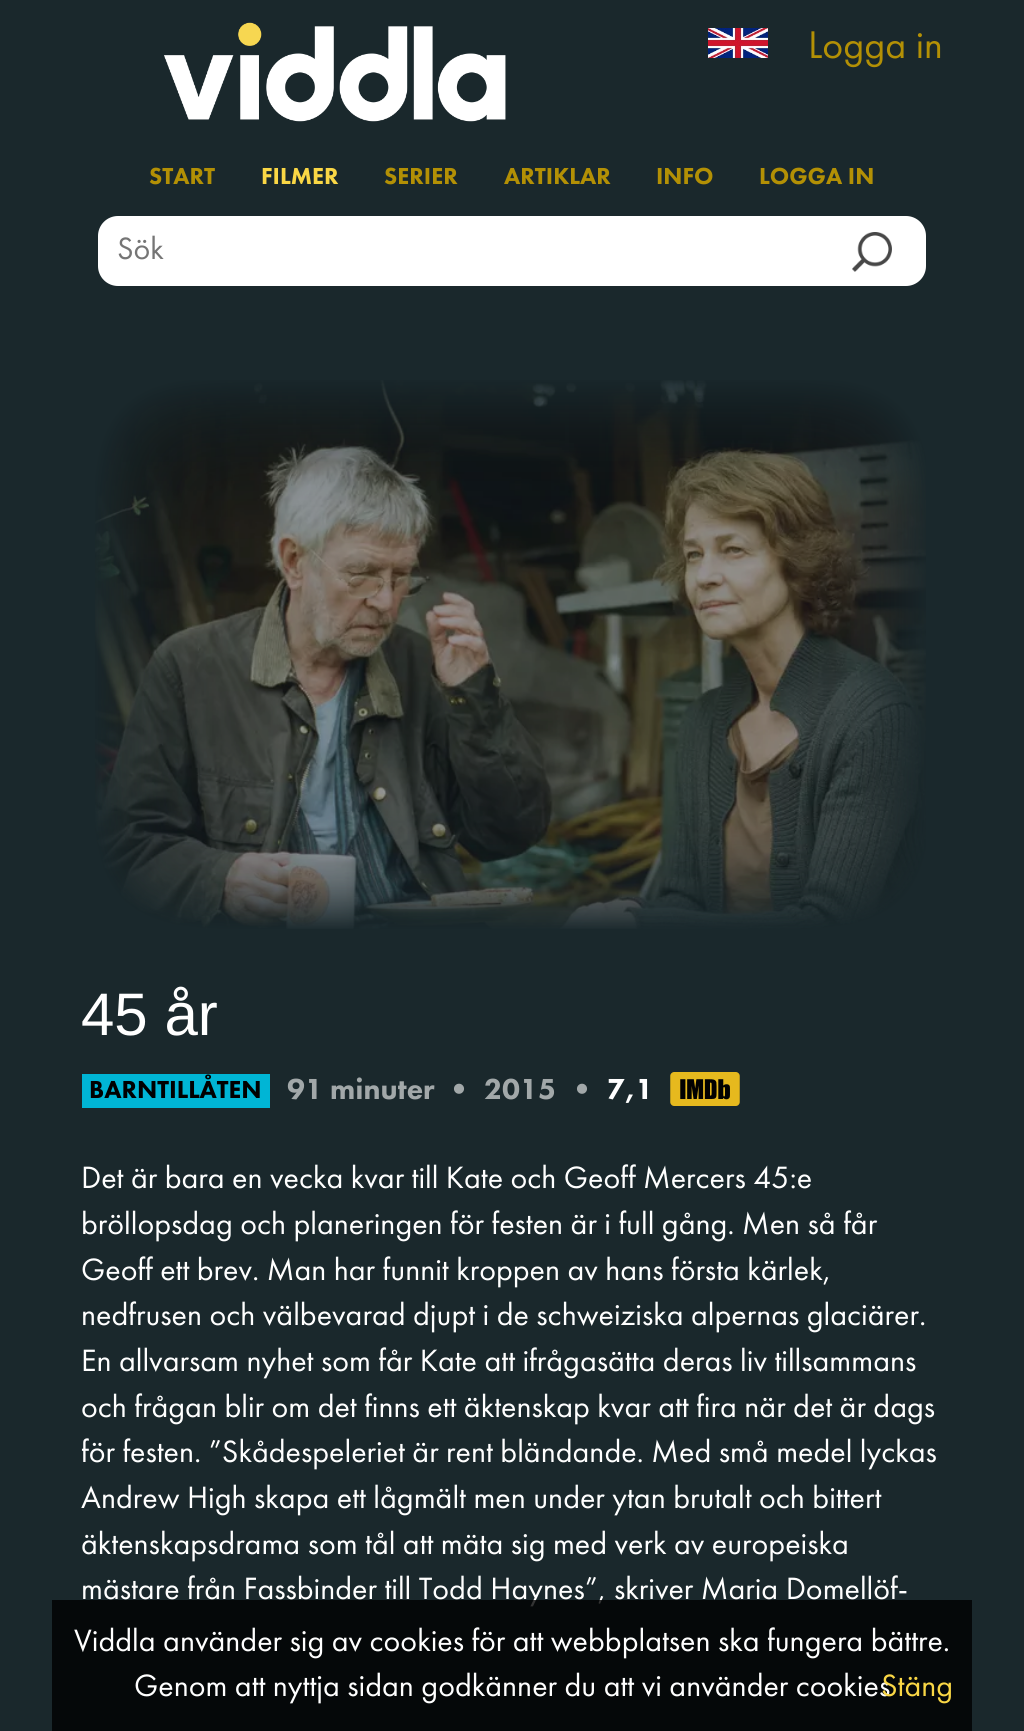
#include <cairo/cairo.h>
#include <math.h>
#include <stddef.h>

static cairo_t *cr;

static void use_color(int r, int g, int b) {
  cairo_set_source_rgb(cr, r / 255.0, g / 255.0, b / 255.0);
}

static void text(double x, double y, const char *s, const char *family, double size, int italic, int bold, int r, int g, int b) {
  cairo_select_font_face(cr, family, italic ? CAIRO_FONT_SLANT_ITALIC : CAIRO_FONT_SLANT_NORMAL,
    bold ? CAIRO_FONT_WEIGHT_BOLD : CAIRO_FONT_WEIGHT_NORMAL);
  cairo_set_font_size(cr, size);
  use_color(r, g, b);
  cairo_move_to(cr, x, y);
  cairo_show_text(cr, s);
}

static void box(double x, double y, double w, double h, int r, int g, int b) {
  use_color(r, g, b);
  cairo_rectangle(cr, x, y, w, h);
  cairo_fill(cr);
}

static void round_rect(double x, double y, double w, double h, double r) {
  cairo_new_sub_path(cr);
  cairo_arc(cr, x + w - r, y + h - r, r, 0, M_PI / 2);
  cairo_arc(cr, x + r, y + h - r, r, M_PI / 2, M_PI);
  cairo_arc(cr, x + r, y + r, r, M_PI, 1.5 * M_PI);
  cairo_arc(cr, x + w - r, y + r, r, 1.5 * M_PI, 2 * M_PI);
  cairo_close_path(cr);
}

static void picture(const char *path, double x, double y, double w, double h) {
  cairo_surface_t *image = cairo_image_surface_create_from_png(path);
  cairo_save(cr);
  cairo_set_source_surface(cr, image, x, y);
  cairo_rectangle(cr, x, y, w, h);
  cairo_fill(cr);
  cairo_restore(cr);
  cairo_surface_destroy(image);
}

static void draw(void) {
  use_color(26, 40, 44);
  cairo_paint(cr);
  picture("img_01.png", 164, 22, 342, 100);
  picture("img_02.png", 708, 28, 60, 30);
  use_color(255, 255, 255);
  round_rect(98, 216, 828, 70, 20);
  cairo_fill(cr);
  picture("img_03.png", 852, 232, 40, 40);
  picture("img_04.png", 95, 380, 831, 549);
  box(82, 1074, 188, 34, 0, 181, 213);
  picture("img_05.png", 670, 1072, 70, 34);
  text(808, 58, "Logga in", "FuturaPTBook", 40, 0, 0, 179, 144, 5);
  text(149, 184, "START", "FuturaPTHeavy", 24, 0, 0, 179, 144, 5);
  text(261, 184, "FILMER", "FuturaPTHeavy", 24, 0, 0, 250, 215, 69);
  text(384, 184, "SERIER", "FuturaPTHeavy", 24, 0, 0, 179, 144, 5);
  text(504, 184, "ARTIKLAR", "FuturaPTHeavy", 24, 0, 0, 179, 144, 5);
  text(656, 184, "INFO", "FuturaPTHeavy", 24, 0, 0, 179, 144, 5);
  text(759, 184, "LOGGA IN", "FuturaPTHeavy", 24, 0, 0, 179, 144, 5);
  text(117, 259, "Sök", "FuturaPTBook", 32, 0, 0, 117, 117, 117);
  text(81, 1035, "45 år", "Liberation Sans", 60, 0, 0, 255, 255, 255);
  text(89, 1098, "BARNTILLÅTEN", "FuturaPTHeavy", 25.5, 0, 0, 0, 0, 0);
  text(287, 1099, "91 minuter", "FuturaPTHeavy", 30, 0, 0, 162, 168, 169);
  text(441, 1101, "•", "FuturaPTHeavy", 36, 0, 0, 162, 168, 169);
  text(484, 1099, "2015", "FuturaPTHeavy", 30, 0, 0, 162, 168, 169);
  text(564, 1101, "•", "FuturaPTHeavy", 36, 0, 0, 162, 168, 169);
  text(607, 1099, "7,1", "FuturaPTHeavy", 30, 0, 0, 255, 255, 255);
  text(81, 1188, "Det är bara en vecka kvar till Kate och Geoff Mercers 45:e", "FuturaPTBook", 32, 0, 0, 255, 255, 255);
  text(81, 1234, "bröllopsdag och planeringen för festen är i full gång. Men så får", "FuturaPTBook", 32, 0, 0, 255, 255, 255);
  text(81, 1280, "Geoff ett brev. Man har funnit kroppen av hans första kärlek,", "FuturaPTBook", 32, 0, 0, 255, 255, 255);
  text(81, 1325, "nedfrusen och välbevarad djupt i de schweiziska alpernas glaciärer.", "FuturaPTBook", 32, 0, 0, 255, 255, 255);
  text(81, 1371, "En allvarsam nyhet som får Kate att ifrågasätta deras liv tillsammans", "FuturaPTBook", 32, 0, 0, 255, 255, 255);
  text(81, 1417, "och frågan blir om det finns ett äktenskap kvar att fira när det är dags", "FuturaPTBook", 32, 0, 0, 255, 255, 255);
  text(81, 1462, "för festen. ”Skådespeleriet är rent bländande. Med små medel lyckas", "FuturaPTBook", 32, 0, 0, 255, 255, 255);
  text(81, 1508, "Andrew High skapa ett lågmält men under ytan brutalt och bittert", "FuturaPTBook", 32, 0, 0, 255, 255, 255);
  text(81, 1554, "äktenskapsdrama som tål att mäta sig med verk av europeiska", "FuturaPTBook", 32, 0, 0, 255, 255, 255);
  text(81, 1599, "mästare från Fassbinder till Todd Haynes”, skriver Maria Domellöf-", "FuturaPTBook", 32, 0, 0, 255, 255, 255);
  cairo_set_source_rgba(cr, 0, 0, 0, 0.8);
  cairo_rectangle(cr, 52, 1600, 920, 131);
  cairo_fill(cr);
  text(74, 1651, "Viddla använder sig av cookies för att webbplatsen ska fungera bättre.", "FuturaPTBook", 32, 0, 0, 255, 255, 255);
  text(134, 1696, "Genom att nyttja sidan godkänner du att vi använder cookies", "FuturaPTBook", 32, 0, 0, 255, 255, 255);
  text(881, 1696, "Stäng", "FuturaPTBook", 32, 0, 0, 250, 215, 69);
}

int main(void) {
  cairo_surface_t *surface = cairo_image_surface_create(CAIRO_FORMAT_RGB24, 1024, 1731);
  cr = cairo_create(surface);
  cairo_font_options_t *options = cairo_font_options_create();
  cairo_font_options_set_hint_metrics(options, CAIRO_HINT_METRICS_OFF);
  cairo_font_options_set_hint_style(options, CAIRO_HINT_STYLE_NONE);
  cairo_set_font_options(cr, options);
  cairo_set_miter_limit(cr, 4);
  draw();
  cairo_surface_write_to_png(surface, "out.png");
  cairo_font_options_destroy(options);
  cairo_destroy(cr);
  cairo_surface_destroy(surface);
  return 0;
}
